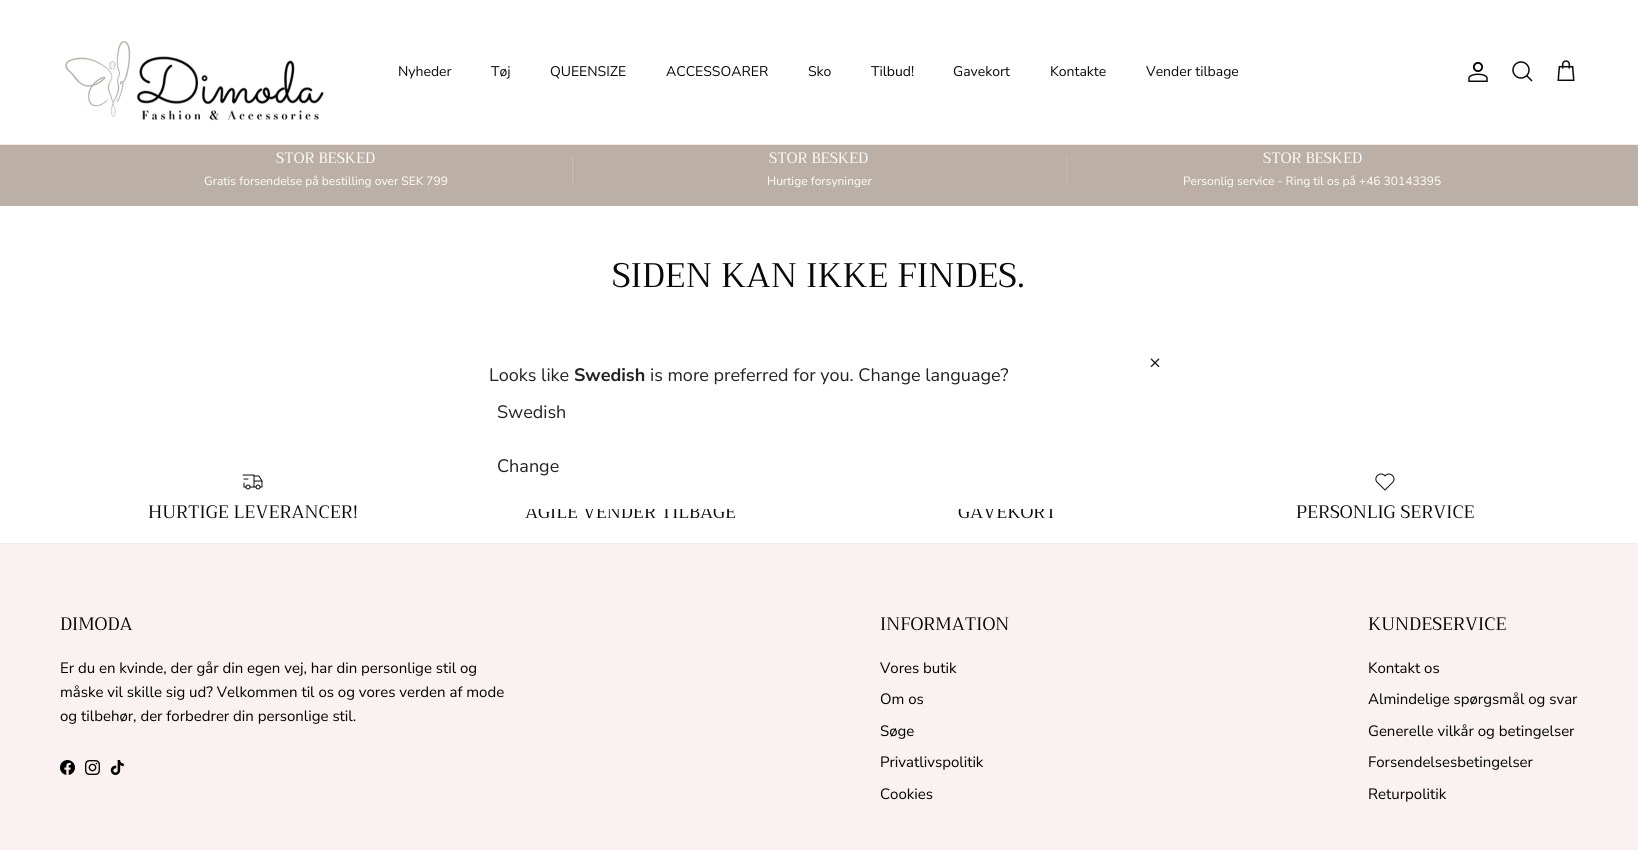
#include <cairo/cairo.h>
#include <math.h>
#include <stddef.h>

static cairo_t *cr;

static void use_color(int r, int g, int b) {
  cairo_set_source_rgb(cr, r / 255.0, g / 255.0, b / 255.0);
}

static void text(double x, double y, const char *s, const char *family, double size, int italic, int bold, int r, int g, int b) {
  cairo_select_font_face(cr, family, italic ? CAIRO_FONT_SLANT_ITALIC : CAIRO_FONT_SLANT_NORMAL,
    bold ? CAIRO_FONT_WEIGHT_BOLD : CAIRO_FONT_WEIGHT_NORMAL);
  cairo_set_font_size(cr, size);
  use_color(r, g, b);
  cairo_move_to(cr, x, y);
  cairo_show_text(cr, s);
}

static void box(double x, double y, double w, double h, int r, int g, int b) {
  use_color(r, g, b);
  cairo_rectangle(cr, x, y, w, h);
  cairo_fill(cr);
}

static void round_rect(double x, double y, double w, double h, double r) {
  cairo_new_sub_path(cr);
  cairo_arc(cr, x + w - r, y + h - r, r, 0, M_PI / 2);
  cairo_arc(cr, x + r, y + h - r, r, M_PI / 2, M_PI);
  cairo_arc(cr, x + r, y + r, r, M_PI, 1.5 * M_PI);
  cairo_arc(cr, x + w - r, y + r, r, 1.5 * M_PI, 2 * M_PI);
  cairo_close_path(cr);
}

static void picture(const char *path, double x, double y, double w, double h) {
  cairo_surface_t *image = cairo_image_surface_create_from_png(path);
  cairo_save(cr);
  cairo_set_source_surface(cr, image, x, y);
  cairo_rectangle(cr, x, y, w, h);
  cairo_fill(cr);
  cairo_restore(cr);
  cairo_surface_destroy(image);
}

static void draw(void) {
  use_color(255, 255, 255);
  cairo_paint(cr);
  box(0, 144, 1638, 1, 243, 234, 226);
  picture("img_01.png", 65, 41, 259, 80);
  picture("img_02.png", 1468, 62, 20, 20);
  cairo_arc(cr, 1521, 70, 8, 0, 2 * M_PI);
  use_color(10, 9, 8);
  cairo_set_line_width(cr, 1.5);
  cairo_stroke(cr);
  cairo_new_path(cr);
  cairo_move_to(cr, 1527, 76);
  cairo_line_to(cr, 1531.5, 80.5);
  cairo_set_line_cap(cr, CAIRO_LINE_CAP_SQUARE);
  cairo_stroke(cr);
  picture("img_03.png", 1557, 60, 18, 21);
  box(0, 145, 1638, 61, 188, 176, 166);
  box(572, 156, 1, 30, 198, 188, 179);
  box(1066, 156, 1, 30, 198, 188, 179);
  picture("img_05.png", 242, 474, 21, 16);
  cairo_new_path(cr);
  cairo_move_to(cr, 1392.5, 482.5);
  cairo_line_to(cr, 1385, 490);
  cairo_line_to(cr, 1376.5, 481.5);
  cairo_curve_to(cr, 1373.5, 476, 1381.5, 471, 1385, 476);
  cairo_curve_to(cr, 1389, 470.5, 1397.5, 477.5, 1392.5, 482.5);
  use_color(10, 9, 8);
  cairo_set_line_width(cr, 1);
  cairo_set_line_cap(cr, CAIRO_LINE_CAP_ROUND);
  cairo_set_line_join(cr, CAIRO_LINE_JOIN_ROUND);
  cairo_stroke(cr);
  box(0, 544, 1638, 306, 250, 242, 242);
  box(0, 543, 1638, 1, 249, 233, 232);
  picture("img_06.png", 60, 760, 15, 15);
  picture("img_07.png", 85, 760, 15, 15);
  picture("img_08.png", 110, 760, 14, 15);
  text(398, 76, "Nyheder", "Nunito Sans", 14, 0, 0, 10, 9, 8);
  text(491, 76, "Tøj", "Nunito Sans", 14, 0, 0, 10, 9, 8);
  text(550, 76, "QUEENSIZE", "Nunito Sans", 14, 0, 0, 10, 9, 8);
  text(666, 76, "ACCESSOARER", "Nunito Sans", 14, 0, 0, 10, 9, 8);
  text(808, 76, "Sko", "Nunito Sans", 14, 0, 0, 10, 9, 8);
  text(871, 76, "Tilbud!", "Nunito Sans", 14, 0, 0, 10, 9, 8);
  text(953, 76, "Gavekort", "Nunito Sans", 14, 0, 0, 10, 9, 8);
  text(1050, 76, "Kontakte", "Nunito Sans", 14, 0, 0, 10, 9, 8);
  text(1146, 76, "Vender tilbage", "Nunito Sans", 14, 0, 0, 10, 9, 8);
  text(276, 163, "STOR BESKED", "Trirong", 15, 0, 0, 255, 255, 255);
  text(204, 185, "Gratis forsendelse på bestilling over SEK 799", "Nunito Sans", 12, 0, 0, 255, 255, 255);
  text(769, 163, "STOR BESKED", "Trirong", 15, 0, 0, 255, 255, 255);
  text(767, 185, "Hurtige forsyninger", "Nunito Sans", 12, 0, 0, 255, 255, 255);
  text(1263, 163, "STOR BESKED", "Trirong", 15, 0, 0, 255, 255, 255);
  text(1183, 185, "Personlig service - Ring til os på +46 30143395", "Nunito Sans", 12, 0, 0, 255, 255, 255);
  text(612, 287, "SIDEN KAN IKKE FINDES.", "Trirong", 34, 0, 0, 10, 9, 8);
  text(148, 518, "HURTIGE LEVERANCER!", "Trirong", 18, 0, 0, 10, 9, 8);
  text(525, 518, "AGILE VENDER TILBAGE", "Trirong", 18, 0, 0, 10, 9, 8);
  text(958, 518, "GAVEKORT", "Trirong", 18, 0, 0, 10, 9, 8);
  use_color(255, 255, 255);
  round_rect(469, 341, 700, 168, 8);
  cairo_fill(cr);
  text(497, 418, "Swedish", "Nunito Sans", 18, 0, 0, 32, 34, 35);
  picture("img_04.png", 1150, 358, 10, 10);
  text(497, 472, "Change", "Nunito Sans", 18, 0, 0, 32, 34, 35);
  text(650, 381, "is more preferred for you. Change language?", "Nunito Sans", 18, 0, 0, 32, 34, 35);
  text(574, 381, "Swedish", "Nunito Sans", 18, 0, 1, 32, 34, 35);
  text(489, 381, "Looks like", "Nunito Sans", 18, 0, 0, 32, 34, 35);
  text(1296, 518, "PERSONLIG SERVICE", "Trirong", 18, 0, 0, 10, 9, 8);
  text(60, 630, "DIMODA", "Trirong", 18, 0, 0, 0, 0, 0);
  text(60, 673, "Er du en kvinde, der går din egen vej, har din personlige stil og", "Nunito Sans", 15, 0, 0, 0, 0, 0);
  text(60, 697, "måske vil skille sig ud? Velkommen til os og vores verden af mode", "Nunito Sans", 15, 0, 0, 0, 0, 0);
  text(60, 721, "og tilbehør, der forbedrer din personlige stil.", "Nunito Sans", 15, 0, 0, 0, 0, 0);
  text(880, 630, "INFORMATION", "Trirong", 18, 0, 0, 0, 0, 0);
  text(880, 673, "Vores butik", "Nunito Sans", 15, 0, 0, 0, 0, 0);
  text(880, 704, "Om os", "Nunito Sans", 15, 0, 0, 0, 0, 0);
  text(880, 736, "Søge", "Nunito Sans", 15, 0, 0, 0, 0, 0);
  text(880, 767, "Privatlivspolitik", "Nunito Sans", 15, 0, 0, 0, 0, 0);
  text(880, 799, "Cookies", "Nunito Sans", 15, 0, 0, 0, 0, 0);
  text(1368, 630, "KUNDESERVICE", "Trirong", 18, 0, 0, 0, 0, 0);
  text(1368, 673, "Kontakt os", "Nunito Sans", 15, 0, 0, 0, 0, 0);
  text(1368, 704, "Almindelige spørgsmål og svar", "Nunito Sans", 15, 0, 0, 0, 0, 0);
  text(1368, 736, "Generelle vilkår og betingelser", "Nunito Sans", 15, 0, 0, 0, 0, 0);
  text(1368, 767, "Forsendelsesbetingelser", "Nunito Sans", 15, 0, 0, 0, 0, 0);
  text(1368, 799, "Returpolitik", "Nunito Sans", 15, 0, 0, 0, 0, 0);
}

int main(void) {
  cairo_surface_t *surface = cairo_image_surface_create(CAIRO_FORMAT_RGB24, 1638, 850);
  cr = cairo_create(surface);
  cairo_font_options_t *options = cairo_font_options_create();
  cairo_font_options_set_hint_metrics(options, CAIRO_HINT_METRICS_OFF);
  cairo_font_options_set_hint_style(options, CAIRO_HINT_STYLE_NONE);
  cairo_set_font_options(cr, options);
  cairo_set_miter_limit(cr, 4);
  draw();
  cairo_surface_write_to_png(surface, "out.png");
  cairo_font_options_destroy(options);
  cairo_destroy(cr);
  cairo_surface_destroy(surface);
  return 0;
}
